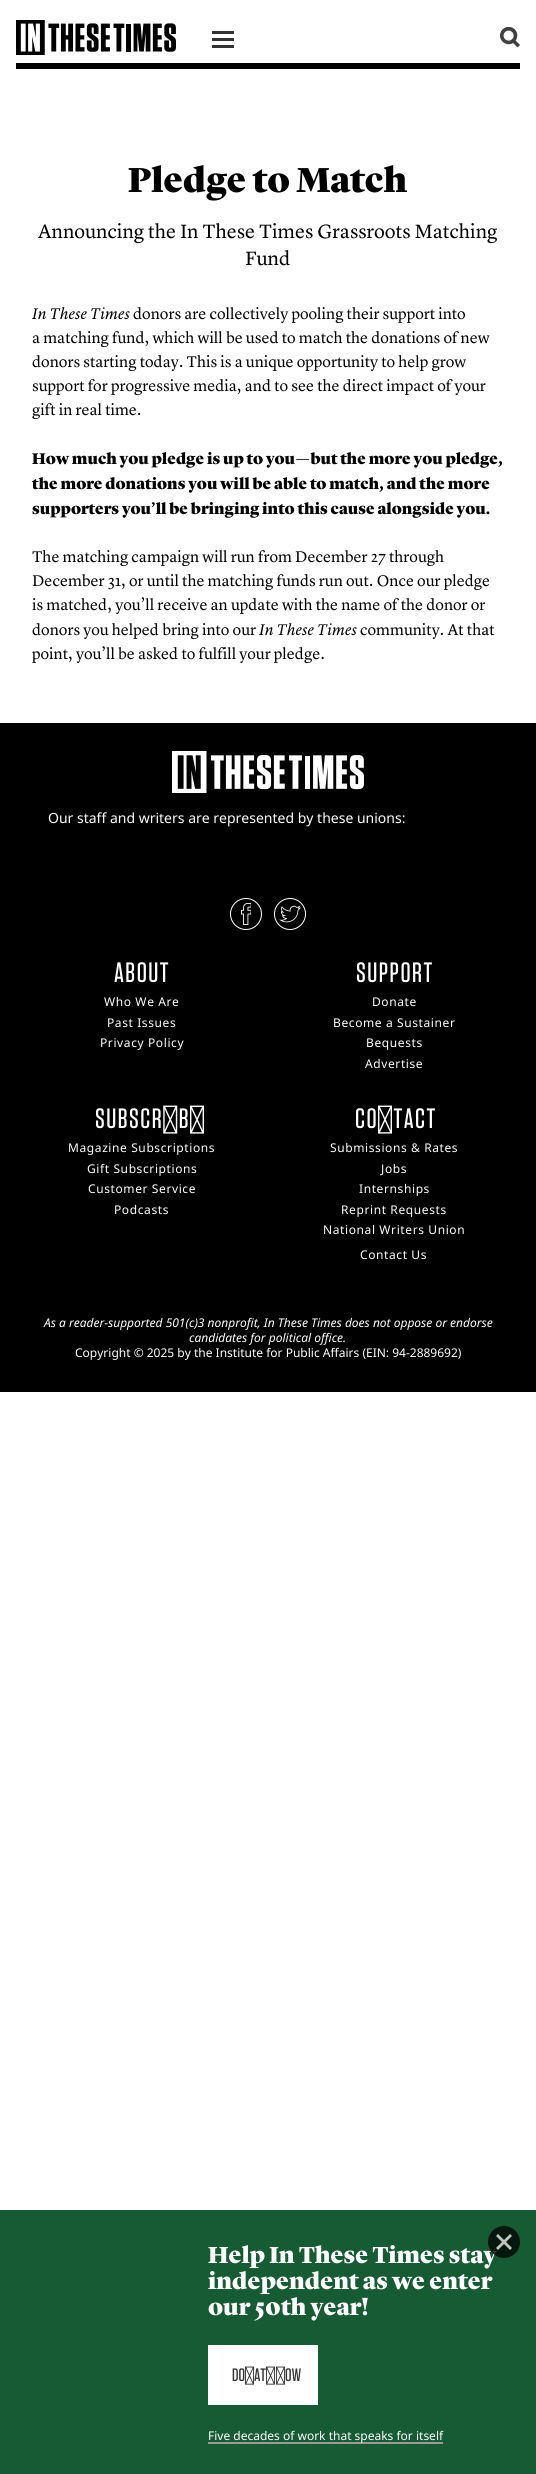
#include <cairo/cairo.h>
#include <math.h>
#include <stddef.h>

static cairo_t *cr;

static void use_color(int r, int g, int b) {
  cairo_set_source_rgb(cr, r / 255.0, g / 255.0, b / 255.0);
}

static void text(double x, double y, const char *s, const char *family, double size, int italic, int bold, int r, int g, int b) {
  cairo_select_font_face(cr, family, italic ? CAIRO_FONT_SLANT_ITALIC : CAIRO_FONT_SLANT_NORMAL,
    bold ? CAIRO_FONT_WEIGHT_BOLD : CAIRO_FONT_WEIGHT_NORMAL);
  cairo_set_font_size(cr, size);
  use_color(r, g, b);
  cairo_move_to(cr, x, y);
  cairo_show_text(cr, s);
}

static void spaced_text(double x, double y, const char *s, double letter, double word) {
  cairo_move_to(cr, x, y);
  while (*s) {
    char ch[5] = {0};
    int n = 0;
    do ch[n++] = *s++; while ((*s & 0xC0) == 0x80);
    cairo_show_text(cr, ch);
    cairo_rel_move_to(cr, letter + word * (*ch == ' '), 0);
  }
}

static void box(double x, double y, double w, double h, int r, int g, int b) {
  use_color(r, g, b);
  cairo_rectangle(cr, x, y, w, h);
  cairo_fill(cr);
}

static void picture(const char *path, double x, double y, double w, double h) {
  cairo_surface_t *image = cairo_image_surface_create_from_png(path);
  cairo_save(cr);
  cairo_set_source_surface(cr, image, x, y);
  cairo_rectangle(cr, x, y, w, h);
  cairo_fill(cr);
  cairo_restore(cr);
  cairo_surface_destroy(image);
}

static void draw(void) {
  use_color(255, 255, 255);
  cairo_paint(cr);
  box(16, 63, 504, 6, 0, 0, 0);
  picture("img_01.png", 16, 20, 160, 35);
  box(212, 38, 22, 3, 51, 51, 51);
  box(212, 31, 22, 3, 51, 51, 51);
  box(212, 45, 22, 3, 51, 51, 51);
  picture("img_02.png", 500, 27, 20, 21);
  picture("img_03.png", 32, 307, 98, 13);
  picture("img_03.png", 259, 623, 98, 13);
  box(0, 2210, 536, 264, 22, 91, 51);
  box(208, 2345, 110, 60, 255, 255, 255);
  box(208, 2442, 235, 2, 153, 153, 153);
  box(0, 723, 536, 669, 0, 0, 0);
  picture("img_05.png", 172, 751, 192, 42);
  cairo_arc(cr, 246, 914, 15.5, 0, 2 * M_PI);
  use_color(255, 255, 255);
  cairo_set_line_width(cr, 1);
  cairo_stroke(cr);
  picture("img_06.png", 241, 903, 10, 22);
  cairo_arc(cr, 290, 914, 15.5, 0, 2 * M_PI);
  cairo_stroke(cr);
  picture("img_07.png", 279, 905, 22, 18);
  text(128, 192, "Pledge to Match", "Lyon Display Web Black", 36, 0, 0, 0, 0, 0);
  text(38, 238, "Announcing the In These Times Grassroots Matching", "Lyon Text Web", 20, 0, 0, 0, 0, 0);
  text(245, 265, "Fund", "Lyon Text Web", 20, 0, 0, 0, 0, 0);
  text(133, 319, "donors are collectively pooling their support into", "Lyon Text Web", 16, 0, 0, 0, 0, 0);
  text(32, 343, "a matching fund, which will be used to match the donations of new", "Lyon Text Web", 16, 0, 0, 0, 0, 0);
  text(32, 367, "donors starting today. This is a unique opportunity to help grow", "Lyon Text Web", 16, 0, 0, 0, 0, 0);
  text(32, 391, "support for progressive media, and to see the direct impact of your", "Lyon Text Web", 16, 0, 0, 0, 0, 0);
  text(32, 415, "gift in real time.", "Lyon Text Web", 16, 0, 0, 0, 0, 0);
  text(32, 464, "How much you pledge is up to you — but the more you pledge,", "Lyon Display Web Black", 16, 0, 0, 0, 0, 0);
  text(32, 489, "the more donations you will be able to match, and the more", "Lyon Display Web Black", 16, 0, 0, 0, 0, 0);
  text(32, 514, "supporters you’ll be bringing into this cause alongside you.", "Lyon Display Web Black", 16, 0, 0, 0, 0, 0);
  text(32, 562, "The matching campaign will run from December", "Lyon Text Web", 16, 0, 0, 0, 0, 0);
  text(371, 562, "27", "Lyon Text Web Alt", 16, 0, 0, 0, 0, 0);
  text(389, 562, "through", "Lyon Text Web", 16, 0, 0, 0, 0, 0);
  text(32, 586, "December", "Lyon Text Web", 16, 0, 0, 0, 0, 0);
  text(108, 586, "31", "Lyon Text Web Alt", 16, 0, 0, 0, 0, 0);
  text(121, 586, ", or until the matching funds run out. Once our pledge", "Lyon Text Web", 16, 0, 0, 0, 0, 0);
  text(32, 610, "is matched, you’ll receive an update with the name of the donor or", "Lyon Text Web", 16, 0, 0, 0, 0, 0);
  text(32, 635, "donors you helped bring into our", "Lyon Text Web", 16, 0, 0, 0, 0, 0);
  text(360, 635, "community. At that", "Lyon Text Web", 16, 0, 0, 0, 0, 0);
  text(32, 659, "point, you’ll be asked to fulfill your pledge.", "Lyon Text Web", 16, 0, 0, 0, 0, 0);
  text(208, 2263, "Help In These Times stay", "Lyon Display Web Black", 24, 0, 0, 255, 255, 255);
  text(208, 2289, "independent as we enter", "Lyon Display Web Black", 24, 0, 0, 255, 255, 255);
  text(208, 2315, "our 50th year!", "Lyon Display Web Black", 24, 0, 0, 255, 255, 255);
  cairo_select_font_face(cr, "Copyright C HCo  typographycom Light", CAIRO_FONT_SLANT_NORMAL, CAIRO_FONT_WEIGHT_NORMAL);
  cairo_set_font_size(cr, 18);
  use_color(51, 51, 51);
  spaced_text(232, 2381, "DONATE NOW", 0, -1);
  text(208, 2440, "Five decades of work that speaks for itself", "Noto Sans", 12, 0, 0, 255, 255, 255);
  cairo_set_source_rgba(cr, 0, 0, 0, 0.75);
  cairo_new_path(cr);
  cairo_arc(cr, 504, 2242, 16, 0, 2 * M_PI);
  cairo_fill(cr);
  picture("img_04.png", 496, 2234, 16, 16);
  text(48, 823, "Our staff and writers are represented by these unions:", "Noto Sans", 14, 0, 0, 255, 255, 255);
  cairo_select_font_face(cr, "Copyright C HCo  typographycom Light", CAIRO_FONT_SLANT_NORMAL, CAIRO_FONT_WEIGHT_NORMAL);
  cairo_set_font_size(cr, 28);
  spaced_text(114, 982, "ABOUT", 1.5, 0);
  cairo_select_font_face(cr, "Noto Sans", CAIRO_FONT_SLANT_NORMAL, CAIRO_FONT_WEIGHT_NORMAL);
  cairo_set_font_size(cr, 12);
  spaced_text(104, 1006, "Who We Are", 0.6, 0);
  spaced_text(107, 1027, "Past Issues", 0.6, 0);
  spaced_text(100, 1047, "Privacy Policy", 0.6, 0);
  cairo_select_font_face(cr, "Copyright C HCo  typographycom Light", CAIRO_FONT_SLANT_NORMAL, CAIRO_FONT_WEIGHT_NORMAL);
  cairo_set_font_size(cr, 28);
  spaced_text(356, 982, "SUPPORT", 1.5, 0);
  cairo_select_font_face(cr, "Noto Sans", CAIRO_FONT_SLANT_NORMAL, CAIRO_FONT_WEIGHT_NORMAL);
  cairo_set_font_size(cr, 12);
  spaced_text(372, 1006, "Donate", 0.6, 0);
  spaced_text(333, 1027, "Become a Sustainer", 0.6, 0);
  spaced_text(366, 1047, "Bequests", 0.6, 0);
  spaced_text(365, 1068, "Advertise", 0.6, 0);
  cairo_select_font_face(cr, "Copyright C HCo  typographycom Light", CAIRO_FONT_SLANT_NORMAL, CAIRO_FONT_WEIGHT_NORMAL);
  cairo_set_font_size(cr, 28);
  spaced_text(95, 1128, "SUBSCRIBE", 1.5, 0);
  cairo_select_font_face(cr, "Noto Sans", CAIRO_FONT_SLANT_NORMAL, CAIRO_FONT_WEIGHT_NORMAL);
  cairo_set_font_size(cr, 12);
  spaced_text(68, 1152, "Magazine Subscriptions", 0.6, 0);
  spaced_text(87, 1173, "Gift Subscriptions", 0.6, 0);
  spaced_text(88, 1193, "Customer Service", 0.6, 0);
  spaced_text(114, 1214, "Podcasts", 0.6, 0);
  cairo_select_font_face(cr, "Copyright C HCo  typographycom Light", CAIRO_FONT_SLANT_NORMAL, CAIRO_FONT_WEIGHT_NORMAL);
  cairo_set_font_size(cr, 28);
  spaced_text(355, 1128, "CONTACT", 1.5, 0);
  cairo_select_font_face(cr, "Noto Sans", CAIRO_FONT_SLANT_NORMAL, CAIRO_FONT_WEIGHT_NORMAL);
  cairo_set_font_size(cr, 12);
  spaced_text(330, 1152, "Submissions & Rates", 0.6, 0);
  spaced_text(381, 1173, "Jobs", 0.6, 0);
  spaced_text(359, 1193, "Internships", 0.6, 0);
  spaced_text(341, 1214, "Reprint Requests", 0.6, 0);
  spaced_text(323, 1234, "National Writers Union", 0.6, 0);
  spaced_text(360, 1259, "Contact Us", 0.6, 0);
  text(44, 1327, "As a reader-supported 501(c)3 nonprofit, In These Times does not oppose or endorse", "Noto Sans", 12, 1, 0, 255, 255, 255);
  text(189, 1342, "candidates for political office.", "Noto Sans", 12, 1, 0, 255, 255, 255);
  text(75, 1357, "Copyright © 2025 by the Institute for Public Affairs (EIN: 94-2889692)", "Noto Sans", 12, 0, 0, 255, 255, 255);
}

int main(void) {
  cairo_surface_t *surface = cairo_image_surface_create(CAIRO_FORMAT_RGB24, 536, 2474);
  cr = cairo_create(surface);
  cairo_font_options_t *options = cairo_font_options_create();
  cairo_font_options_set_hint_metrics(options, CAIRO_HINT_METRICS_OFF);
  cairo_font_options_set_hint_style(options, CAIRO_HINT_STYLE_NONE);
  cairo_set_font_options(cr, options);
  cairo_set_miter_limit(cr, 4);
  draw();
  cairo_surface_write_to_png(surface, "out.png");
  cairo_font_options_destroy(options);
  cairo_destroy(cr);
  cairo_surface_destroy(surface);
  return 0;
}
